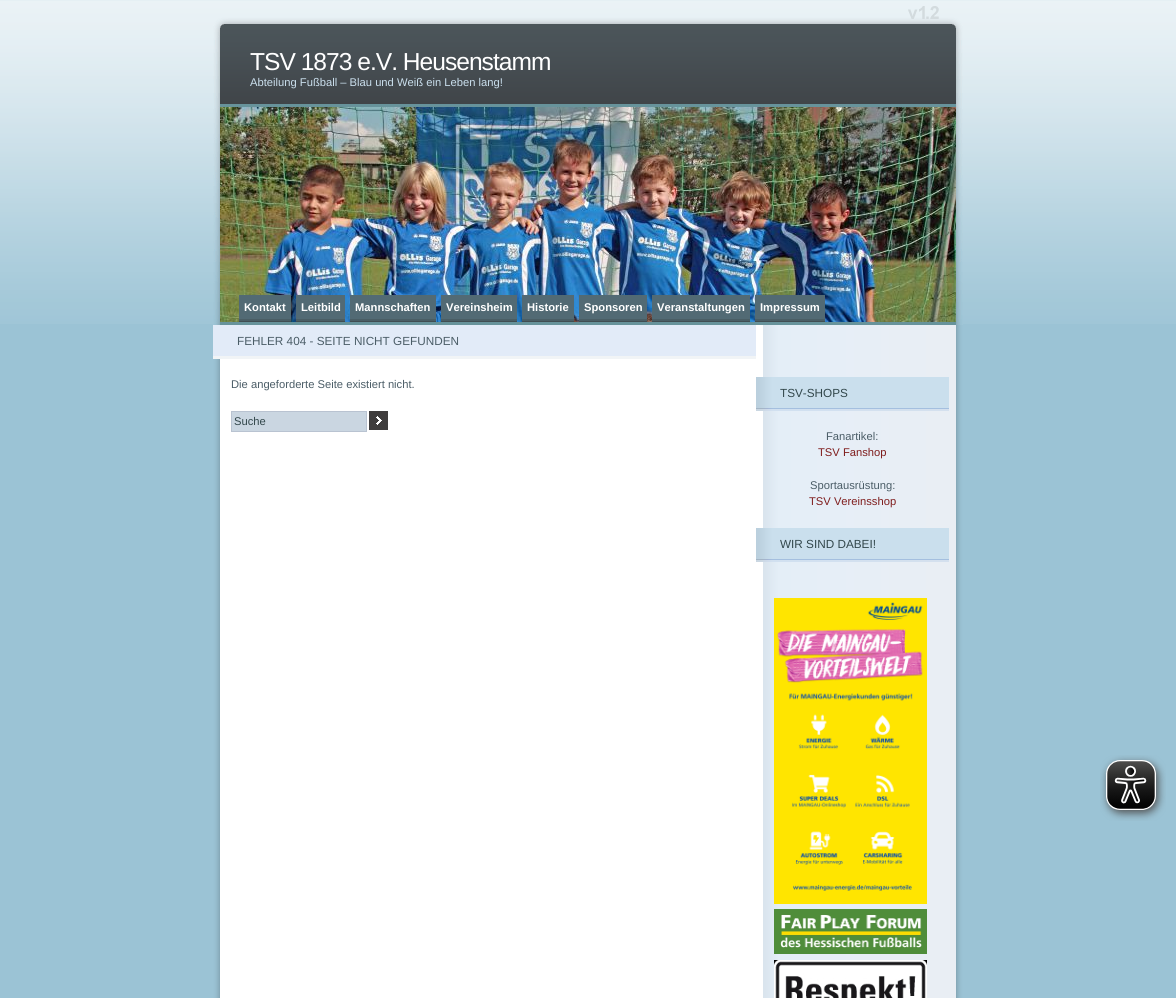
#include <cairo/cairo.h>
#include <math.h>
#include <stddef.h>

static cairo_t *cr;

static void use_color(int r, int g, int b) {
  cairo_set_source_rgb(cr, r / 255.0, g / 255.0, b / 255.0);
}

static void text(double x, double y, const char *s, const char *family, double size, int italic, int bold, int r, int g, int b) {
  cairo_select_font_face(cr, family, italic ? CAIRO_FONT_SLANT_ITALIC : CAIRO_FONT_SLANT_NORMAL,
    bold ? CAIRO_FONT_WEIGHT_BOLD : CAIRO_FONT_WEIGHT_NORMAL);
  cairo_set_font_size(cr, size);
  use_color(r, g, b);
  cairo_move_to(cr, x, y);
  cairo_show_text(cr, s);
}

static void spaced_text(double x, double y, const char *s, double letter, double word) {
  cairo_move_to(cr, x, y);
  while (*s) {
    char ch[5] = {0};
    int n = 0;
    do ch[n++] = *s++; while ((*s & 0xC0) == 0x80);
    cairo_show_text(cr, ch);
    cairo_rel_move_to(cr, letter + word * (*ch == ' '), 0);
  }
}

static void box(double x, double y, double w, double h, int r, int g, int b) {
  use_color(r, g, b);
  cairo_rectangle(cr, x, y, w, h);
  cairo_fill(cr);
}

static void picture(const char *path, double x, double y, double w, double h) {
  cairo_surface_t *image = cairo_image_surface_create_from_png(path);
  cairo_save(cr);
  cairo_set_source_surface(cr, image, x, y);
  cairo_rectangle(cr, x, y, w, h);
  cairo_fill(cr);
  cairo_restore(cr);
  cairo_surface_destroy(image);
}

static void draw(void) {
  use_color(155, 195, 213);
  cairo_paint(cr);
  picture("img_01.png", 0, 0, 1176, 324);
  picture("img_02.png", 213, 325, 750, 673);
  picture("img_03.png", 213, 0, 750, 325);
  picture("img_04.png", 220, 107, 736, 215);
  box(220, 104, 736, 3, 103, 147, 155);
  box(220, 322, 736, 3, 103, 147, 155);
  box(239, 321, 52, 1, 65, 78, 83);
  box(239, 295, 52, 24, 82, 106, 116);
  box(239, 319, 52, 2, 74, 94, 101);
  box(296, 321, 49, 1, 65, 78, 83);
  box(296, 295, 49, 24, 82, 106, 116);
  box(296, 319, 49, 2, 74, 94, 101);
  box(350, 321, 86, 1, 65, 78, 83);
  box(350, 295, 86, 24, 82, 106, 116);
  box(350, 319, 86, 2, 74, 94, 101);
  box(441, 321, 76, 1, 65, 78, 83);
  box(441, 295, 76, 24, 82, 106, 116);
  box(441, 319, 76, 2, 74, 94, 101);
  box(522, 321, 52, 1, 65, 78, 83);
  box(522, 295, 52, 24, 82, 106, 116);
  box(522, 319, 52, 2, 74, 94, 101);
  box(579, 321, 68, 1, 65, 78, 83);
  box(579, 295, 68, 24, 82, 106, 116);
  box(579, 319, 68, 2, 74, 94, 101);
  box(652, 321, 98, 1, 65, 78, 83);
  box(652, 295, 98, 24, 82, 106, 116);
  box(652, 319, 98, 2, 74, 94, 101);
  box(755, 321, 70, 1, 65, 78, 83);
  box(755, 295, 70, 24, 82, 106, 116);
  box(755, 319, 70, 2, 74, 94, 101);
  box(213, 325, 543, 31, 226, 235, 248);
  box(213, 356, 543, 3, 241, 244, 246);
  use_color(202, 214, 225);
  cairo_rectangle(cr, 231.5, 411.5, 135, 20);
  cairo_fill_preserve(cr);
  use_color(185, 195, 209);
  cairo_set_line_width(cr, 1);
  cairo_stroke(cr);
  picture("img_05.png", 369, 411, 19, 19);
  picture("img_06.png", 756, 377, 193, 34);
  picture("img_06.png", 756, 528, 193, 34);
  picture("img_07.png", 774, 598, 153, 306);
  picture("img_08.png", 774, 909, 153, 45);
  picture("img_09.png", 774, 960, 153, 38);
  picture("img_10.png", 1100, 755, 66, 66);
  cairo_select_font_face(cr, "Liberation Sans", CAIRO_FONT_SLANT_NORMAL, CAIRO_FONT_WEIGHT_NORMAL);
  cairo_set_font_size(cr, 24.6);
  use_color(255, 255, 255);
  spaced_text(250, 70, "TSV 1873 e.V. Heusenstamm", -1, 0);
  text(250, 86, "Abteilung Fußball – Blau und Weiß ein Leben lang!", "Liberation Sans", 11.2, 0, 0, 202, 223, 237);
  text(244, 311, "Kontakt", "Liberation Sans", 11.2, 0, 1, 255, 255, 255);
  text(301, 311, "Leitbild", "Liberation Sans", 11.2, 0, 1, 255, 255, 255);
  text(355, 311, "Mannschaften", "Liberation Sans", 11.2, 0, 1, 255, 255, 255);
  text(446, 311, "Vereinsheim", "Liberation Sans", 11.2, 0, 1, 255, 255, 255);
  text(527, 311, "Historie", "Liberation Sans", 11.2, 0, 1, 255, 255, 255);
  text(584, 311, "Sponsoren", "Liberation Sans", 11.2, 0, 1, 255, 255, 255);
  text(657, 311, "Veranstaltungen", "Liberation Sans", 11.2, 0, 1, 255, 255, 255);
  text(760, 311, "Impressum", "Liberation Sans", 11.2, 0, 1, 255, 255, 255);
  text(237, 345, "FEHLER 404 - SEITE NICHT GEFUNDEN", "Liberation Sans", 11.75, 0, 0, 75, 93, 103);
  text(231, 388, "Die angeforderte Seite existiert nicht.", "Liberation Sans", 11.2, 0, 0, 75, 93, 103);
  text(234, 425, "Suche", "Liberation Sans", 11.2, 0, 0, 50, 71, 75);
  text(780, 397, "TSV-SHOPS", "Liberation Sans", 11.75, 0, 0, 50, 71, 75);
  text(826, 440, "Fanartikel:", "Liberation Sans", 11.2, 0, 0, 75, 93, 103);
  text(818, 456, "TSV Fanshop", "Liberation Sans", 11.2, 0, 0, 127, 29, 29);
  text(810, 489, "Sportausrüstung:", "Liberation Sans", 11.2, 0, 0, 75, 93, 103);
  text(809, 505, "TSV Vereinsshop", "Liberation Sans", 11.2, 0, 0, 127, 29, 29);
  text(780, 548, "WIR SIND DABEI!", "Liberation Sans", 11.75, 0, 0, 50, 71, 75);
}

int main(void) {
  cairo_surface_t *surface = cairo_image_surface_create(CAIRO_FORMAT_RGB24, 1176, 998);
  cr = cairo_create(surface);
  cairo_font_options_t *options = cairo_font_options_create();
  cairo_font_options_set_hint_metrics(options, CAIRO_HINT_METRICS_OFF);
  cairo_font_options_set_hint_style(options, CAIRO_HINT_STYLE_NONE);
  cairo_set_font_options(cr, options);
  cairo_set_miter_limit(cr, 4);
  draw();
  cairo_surface_write_to_png(surface, "out.png");
  cairo_font_options_destroy(options);
  cairo_destroy(cr);
  cairo_surface_destroy(surface);
  return 0;
}
